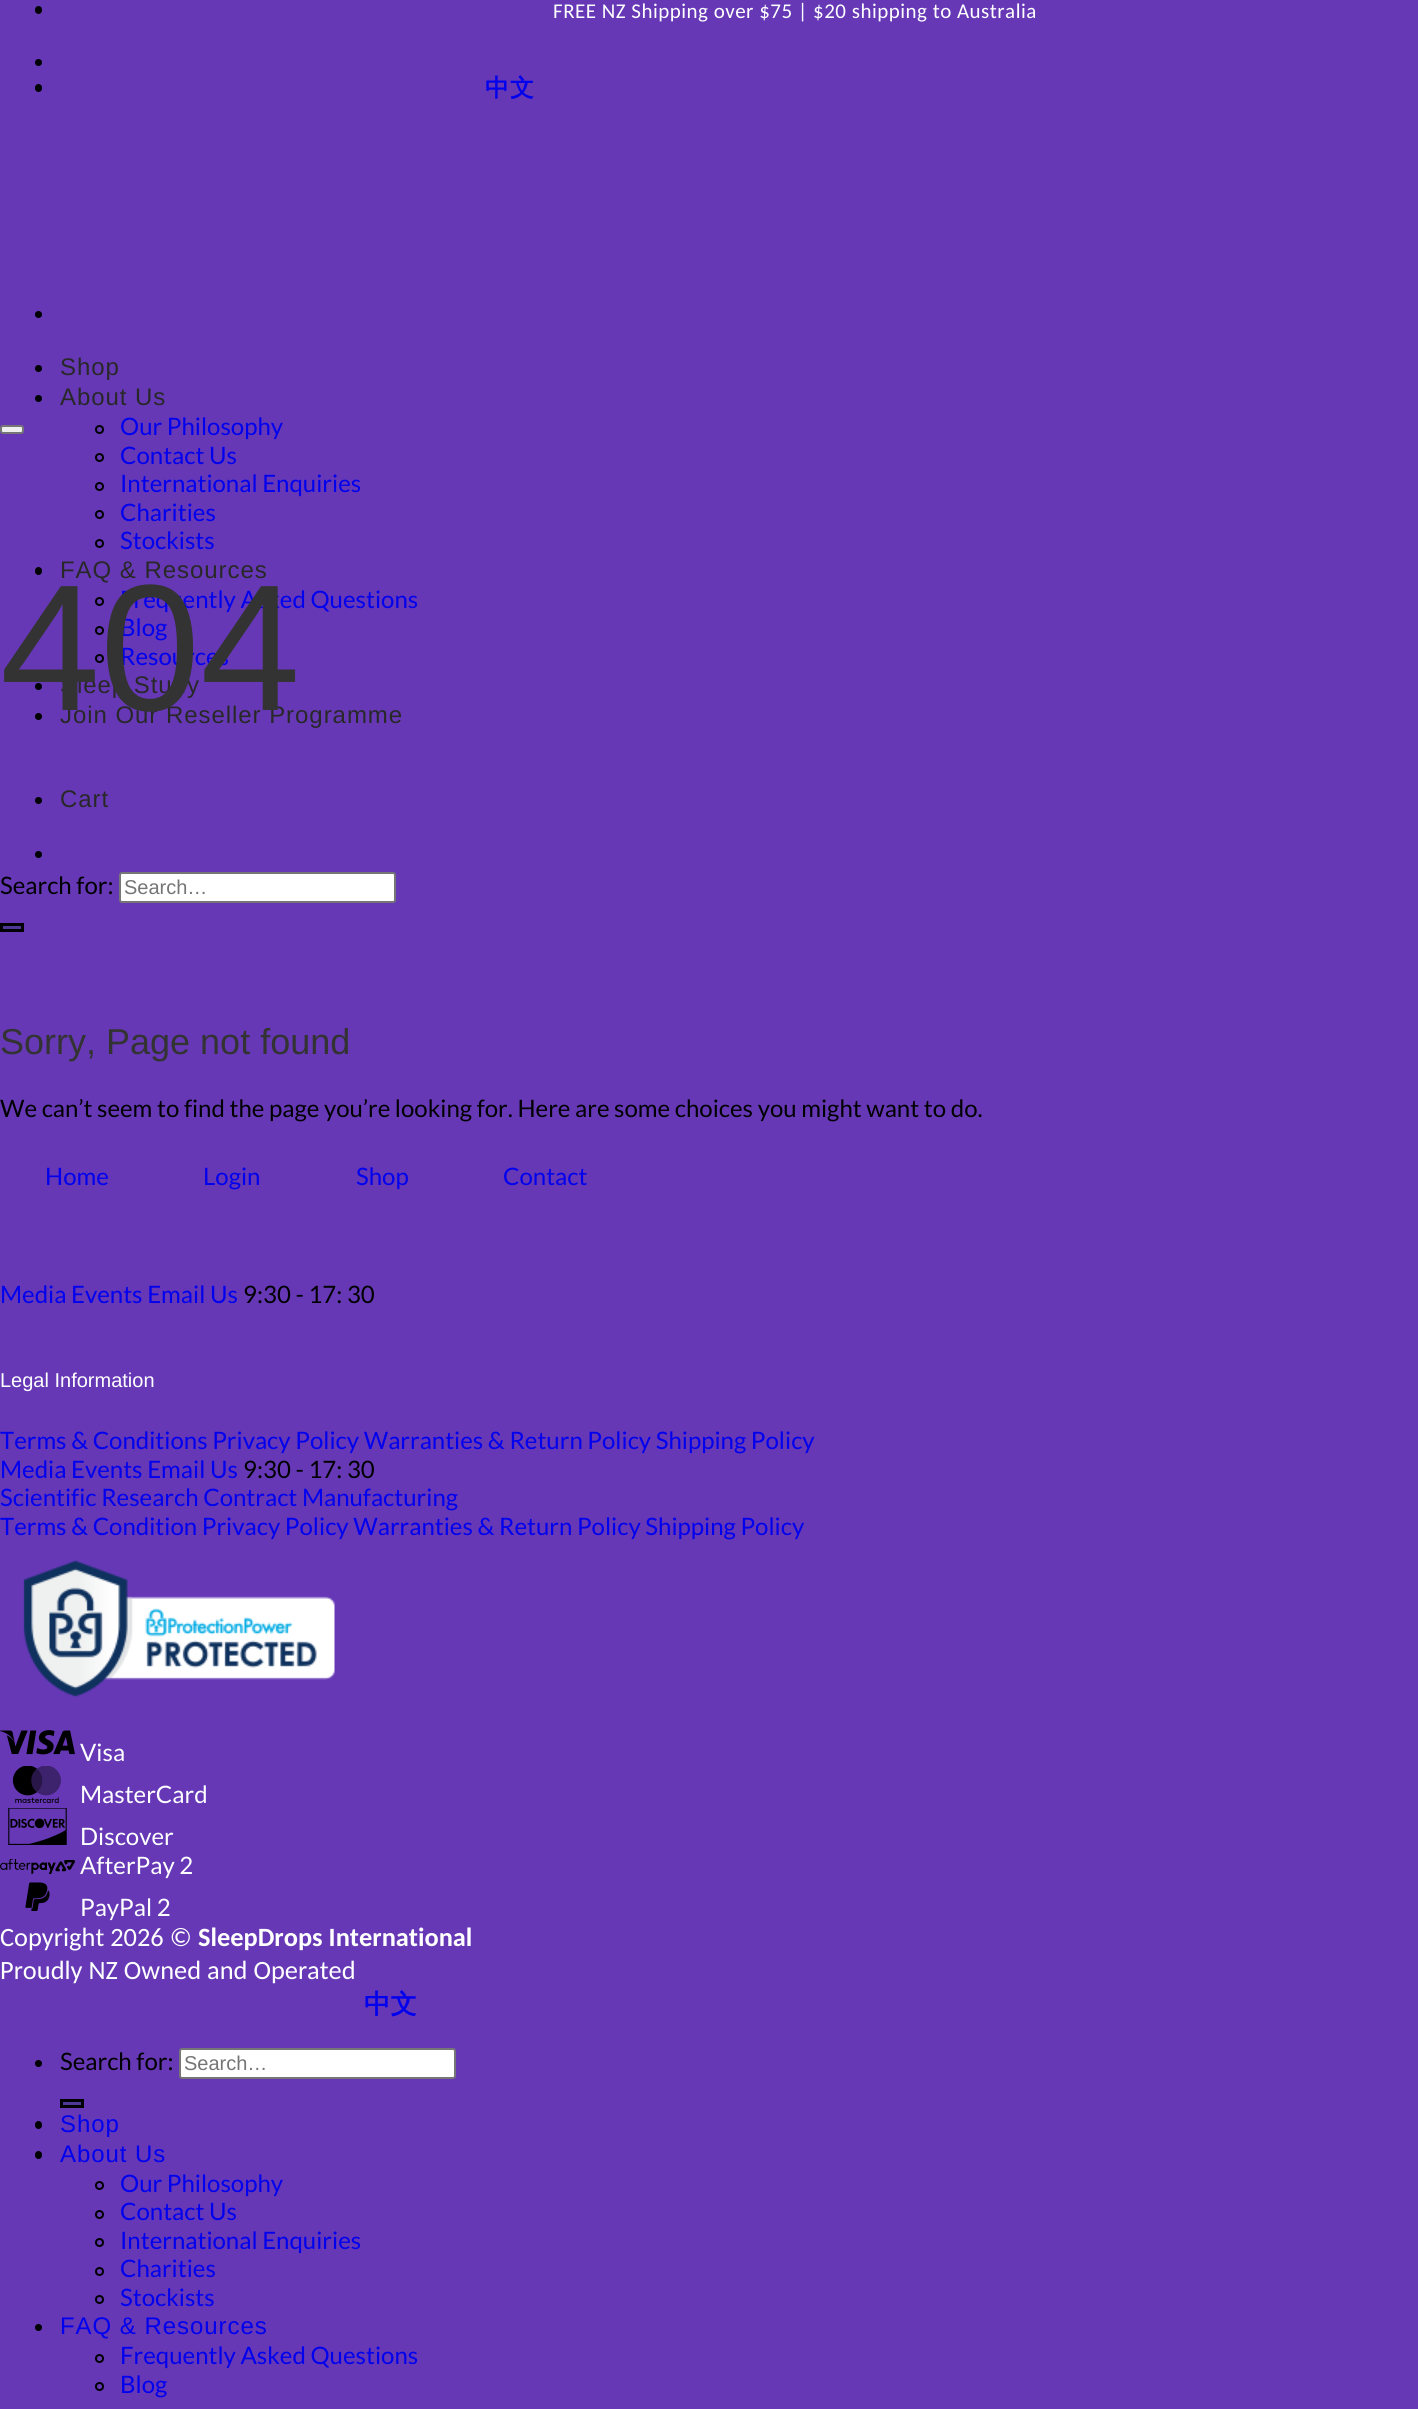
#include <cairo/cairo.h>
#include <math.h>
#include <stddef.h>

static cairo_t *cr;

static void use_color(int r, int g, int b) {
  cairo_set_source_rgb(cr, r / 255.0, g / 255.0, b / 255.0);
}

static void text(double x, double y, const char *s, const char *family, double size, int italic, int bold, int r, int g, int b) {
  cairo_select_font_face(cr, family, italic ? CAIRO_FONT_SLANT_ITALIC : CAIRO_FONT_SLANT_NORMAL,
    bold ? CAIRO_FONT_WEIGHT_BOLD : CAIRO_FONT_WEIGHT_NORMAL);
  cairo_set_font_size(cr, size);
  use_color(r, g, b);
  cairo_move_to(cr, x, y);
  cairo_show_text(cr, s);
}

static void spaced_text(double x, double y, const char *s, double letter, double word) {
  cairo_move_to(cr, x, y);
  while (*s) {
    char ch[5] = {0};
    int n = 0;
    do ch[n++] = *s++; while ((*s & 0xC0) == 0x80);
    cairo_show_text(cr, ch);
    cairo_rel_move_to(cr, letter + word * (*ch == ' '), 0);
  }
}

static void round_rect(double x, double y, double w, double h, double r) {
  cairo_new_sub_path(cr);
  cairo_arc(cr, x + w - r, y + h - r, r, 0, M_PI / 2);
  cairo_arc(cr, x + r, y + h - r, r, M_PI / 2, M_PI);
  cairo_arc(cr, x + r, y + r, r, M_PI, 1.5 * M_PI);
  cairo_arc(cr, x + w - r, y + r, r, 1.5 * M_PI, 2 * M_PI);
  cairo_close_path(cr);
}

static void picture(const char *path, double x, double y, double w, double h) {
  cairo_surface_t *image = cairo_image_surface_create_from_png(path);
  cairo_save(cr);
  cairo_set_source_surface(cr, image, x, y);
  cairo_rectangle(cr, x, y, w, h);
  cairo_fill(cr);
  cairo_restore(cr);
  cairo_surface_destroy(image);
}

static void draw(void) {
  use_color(102, 56, 182);
  cairo_paint(cr);
  use_color(0, 0, 0);
  round_rect(35, 6, 7, 8, 3.5);
  cairo_fill(cr);
  cairo_arc(cr, 38.5, 62.5, 3.5, 0, 2 * M_PI);
  cairo_fill(cr);
  round_rect(35, 84, 7, 8, 3.5);
  cairo_fill(cr);
  cairo_arc(cr, 38.5, 314.5, 3.5, 0, 2 * M_PI);
  cairo_fill(cr);
  cairo_arc(cr, 38.5, 368.5, 3.5, 0, 2 * M_PI);
  cairo_fill(cr);
  cairo_arc(cr, 38.5, 398.5, 3.5, 0, 2 * M_PI);
  cairo_fill(cr);
  cairo_arc(cr, 99.5, 429.5, 3.5, 0, 2 * M_PI);
  cairo_stroke(cr);
  cairo_arc(cr, 99.5, 457.5, 3.5, 0, 2 * M_PI);
  cairo_stroke(cr);
  cairo_arc(cr, 99.5, 486.5, 3.5, 0, 2 * M_PI);
  cairo_stroke(cr);
  cairo_arc(cr, 99.5, 514.5, 3.5, 0, 2 * M_PI);
  cairo_stroke(cr);
  cairo_arc(cr, 99.5, 543.5, 3.5, 0, 2 * M_PI);
  cairo_stroke(cr);
  round_rect(35, 567, 7, 8, 3.5);
  cairo_fill(cr);
  cairo_arc(cr, 99.5, 601.5, 3.5, 0, 2 * M_PI);
  cairo_stroke(cr);
  cairo_arc(cr, 99.5, 630.5, 3.5, 0, 2 * M_PI);
  cairo_stroke(cr);
  cairo_arc(cr, 99.5, 658.5, 3.5, 0, 2 * M_PI);
  cairo_stroke(cr);
  cairo_arc(cr, 38.5, 686.5, 3.5, 0, 2 * M_PI);
  cairo_fill(cr);
  cairo_arc(cr, 38.5, 716.5, 3.5, 0, 2 * M_PI);
  cairo_fill(cr);
  cairo_arc(cr, 38.5, 800.5, 3.5, 0, 2 * M_PI);
  cairo_fill(cr);
  cairo_arc(cr, 38.5, 854.5, 3.5, 0, 2 * M_PI);
  cairo_fill(cr);
  use_color(239, 239, 239);
  round_rect(1, 426, 22, 7, 2);
  cairo_fill_preserve(cr);
  use_color(118, 118, 118);
  cairo_stroke(cr);
  use_color(255, 255, 255);
  round_rect(120, 873, 275, 29, 2);
  cairo_fill_preserve(cr);
  use_color(118, 118, 118);
  cairo_stroke(cr);
  use_color(78, 58, 150);
  cairo_rectangle(cr, 1.5, 924.5, 21, 6);
  cairo_fill_preserve(cr);
  use_color(0, 0, 0);
  cairo_set_line_width(cr, 3);
  cairo_stroke(cr);
  picture("img_01.png", 23, 1560, 312, 137);
  picture("img_02.png", 0, 1730, 75, 25);
  picture("img_03.png", 12, 1766, 49, 37);
  picture("img_04.png", 8, 1808, 59, 37);
  picture("img_05.png", 0, 1859, 75, 15);
  picture("img_06.png", 25, 1882, 25, 29);
  cairo_arc(cr, 38.5, 2063.5, 3.5, 0, 2 * M_PI);
  cairo_fill(cr);
  use_color(255, 255, 255);
  round_rect(180, 2049, 275, 29, 2);
  cairo_fill_preserve(cr);
  use_color(118, 118, 118);
  cairo_set_line_width(cr, 2);
  cairo_stroke(cr);
  use_color(78, 58, 150);
  cairo_rectangle(cr, 61.5, 2100.5, 21, 6);
  cairo_fill_preserve(cr);
  use_color(0, 0, 0);
  cairo_set_line_width(cr, 3);
  cairo_stroke(cr);
  round_rect(35, 2121, 7, 8, 3.5);
  cairo_fill(cr);
  round_rect(35, 2151, 7, 8, 3.5);
  cairo_fill(cr);
  cairo_arc(cr, 99.5, 2185.5, 3.5, 0, 2 * M_PI);
  cairo_set_line_width(cr, 2);
  cairo_stroke(cr);
  cairo_arc(cr, 99.5, 2214.5, 3.5, 0, 2 * M_PI);
  cairo_stroke(cr);
  cairo_arc(cr, 99.5, 2242.5, 3.5, 0, 2 * M_PI);
  cairo_stroke(cr);
  cairo_arc(cr, 99.5, 2271.5, 3.5, 0, 2 * M_PI);
  cairo_stroke(cr);
  cairo_arc(cr, 99.5, 2299.5, 3.5, 0, 2 * M_PI);
  cairo_stroke(cr);
  cairo_arc(cr, 38.5, 2327.5, 3.5, 0, 2 * M_PI);
  cairo_fill(cr);
  cairo_arc(cr, 99.5, 2358.5, 3.5, 0, 2 * M_PI);
  cairo_stroke(cr);
  cairo_arc(cr, 99.5, 2386.5, 3.5, 0, 2 * M_PI);
  cairo_stroke(cr);
  cairo_select_font_face(cr, "Carlito", CAIRO_FONT_SLANT_NORMAL, CAIRO_FONT_WEIGHT_NORMAL);
  cairo_set_font_size(cr, 21);
  use_color(255, 255, 255);
  spaced_text(553, 18, "FREE NZ Shipping over $75 | $20 shipping to Australia", 0.48, 0);
  cairo_select_font_face(cr, "WenQuanYi Zen Hei", CAIRO_FONT_SLANT_NORMAL, CAIRO_FONT_WEIGHT_BOLD);
  cairo_set_font_size(cr, 24);
  use_color(0, 0, 238);
  spaced_text(485, 96, "中文", 0.95, 0);
  cairo_select_font_face(cr, "Liberation Sans", CAIRO_FONT_SLANT_NORMAL, CAIRO_FONT_WEIGHT_NORMAL);
  use_color(40, 40, 40);
  spaced_text(60, 375, "Shop", 0.95, 0);
  spaced_text(60, 405, "About Us", 0.95, 0);
  text(120, 435, "Our Philosophy", "Lato", 24, 0, 0, 0, 0, 238);
  text(120, 464, "Contact Us", "Lato", 24, 0, 0, 0, 0, 238);
  text(120, 492, "International Enquiries", "Lato", 24, 0, 0, 0, 0, 238);
  text(120, 521, "Charities", "Lato", 24, 0, 0, 0, 0, 238);
  text(120, 549, "Stockists", "Lato", 24, 0, 0, 0, 0, 238);
  cairo_select_font_face(cr, "Liberation Sans", CAIRO_FONT_SLANT_NORMAL, CAIRO_FONT_WEIGHT_NORMAL);
  use_color(40, 40, 40);
  spaced_text(60, 578, "FAQ & Resources", 0.95, 0);
  text(120, 608, "Frequently Asked Questions", "Lato", 24, 0, 0, 0, 0, 238);
  text(120, 636, "Blog", "Lato", 24, 0, 0, 0, 0, 238);
  text(120, 665, "Resources", "Lato", 24, 0, 0, 0, 0, 238);
  cairo_select_font_face(cr, "Liberation Sans", CAIRO_FONT_SLANT_NORMAL, CAIRO_FONT_WEIGHT_NORMAL);
  use_color(40, 40, 40);
  spaced_text(60, 693, "Sleep Study", 0.95, 0);
  spaced_text(60, 723, "Join Our Reseller Programme", 0.95, 0);
  spaced_text(60, 807, "Cart", 0.95, 0);
  text(0, 710, "404", "Liberation Sans", 180, 0, 0, 51, 51, 51);
  text(0, 894, "Search for:", "Lato", 24, 0, 0, 0, 0, 0);
  text(124, 894, "Search…", "Liberation Sans", 20, 0, 0, 117, 117, 117);
  text(0, 1054, "Sorry, Page not found", "Liberation Sans", 36, 0, 0, 51, 51, 51);
  text(0, 1117, "We can’t seem to find the page you’re looking for. Here are some choices you might want to do.", "Lato", 24, 0, 0, 0, 0, 0);
  text(45, 1185, "Home", "Lato", 24, 0, 0, 0, 0, 238);
  text(203, 1185, "Login", "Lato", 24, 0, 0, 0, 0, 238);
  text(356, 1185, "Shop", "Lato", 24, 0, 0, 0, 0, 238);
  text(503, 1185, "Contact", "Lato", 24, 0, 0, 0, 0, 238);
  text(0, 1303, "Media Events Email Us", "Lato", 24, 0, 0, 0, 0, 238);
  text(243, 1303, "9:30 - 17: 30", "Lato", 24, 0, 0, 0, 0, 0);
  text(0, 1387, "Legal Information", "Liberation Sans", 20, 0, 0, 255, 255, 255);
  text(0, 1449, "Terms & Conditions Privacy Policy Warranties & Return Policy Shipping Policy", "Lato", 24, 0, 0, 0, 0, 238);
  text(0, 1478, "Media Events Email Us", "Lato", 24, 0, 0, 0, 0, 238);
  text(243, 1478, "9:30 - 17: 30", "Lato", 24, 0, 0, 0, 0, 0);
  text(0, 1506, "Scientific Research Contract Manufacturing", "Lato", 24, 0, 0, 0, 0, 238);
  text(0, 1535, "Terms & Condition Privacy Policy Warranties & Return Policy Shipping Policy", "Lato", 24, 0, 0, 0, 0, 238);
  text(80, 1761, "Visa", "Lato", 24, 0, 0, 255, 255, 255);
  text(80, 1803, "MasterCard", "Lato", 24, 0, 0, 255, 255, 255);
  text(80, 1845, "Discover", "Lato", 24, 0, 0, 255, 255, 255);
  text(80, 1874, "AfterPay 2", "Lato", 24, 0, 0, 255, 255, 255);
  text(80, 1916, "PayPal 2", "Lato", 24, 0, 0, 255, 255, 255);
  text(0, 1946, "Copyright 2026 ©", "Carlito", 26.4, 0, 0, 255, 255, 255);
  text(198, 1946, "SleepDrops International", "Carlito", 26.4, 0, 1, 255, 255, 255);
  text(0, 1979, "Proudly NZ Owned and Operated", "Carlito", 26.4, 0, 0, 255, 255, 255);
  text(364, 2013, "中文", "WenQuanYi Zen Hei", 26.4, 0, 1, 0, 0, 238);
  text(60, 2070, "Search for:", "Lato", 24, 0, 0, 0, 0, 0);
  text(184, 2070, "Search…", "Liberation Sans", 20, 0, 0, 117, 117, 117);
  cairo_set_font_size(cr, 24);
  use_color(0, 0, 238);
  spaced_text(60, 2132, "Shop", 0.95, 0);
  spaced_text(60, 2162, "About Us", 0.95, 0);
  text(120, 2192, "Our Philosophy", "Lato", 24, 0, 0, 0, 0, 238);
  text(120, 2220, "Contact Us", "Lato", 24, 0, 0, 0, 0, 238);
  text(120, 2249, "International Enquiries", "Lato", 24, 0, 0, 0, 0, 238);
  text(120, 2277, "Charities", "Lato", 24, 0, 0, 0, 0, 238);
  text(120, 2306, "Stockists", "Lato", 24, 0, 0, 0, 0, 238);
  cairo_select_font_face(cr, "Liberation Sans", CAIRO_FONT_SLANT_NORMAL, CAIRO_FONT_WEIGHT_NORMAL);
  spaced_text(60, 2334, "FAQ & Resources", 0.95, 0);
  text(120, 2364, "Frequently Asked Questions", "Lato", 24, 0, 0, 0, 0, 238);
  text(120, 2393, "Blog", "Lato", 24, 0, 0, 0, 0, 238);
}

int main(void) {
  cairo_surface_t *surface = cairo_image_surface_create(CAIRO_FORMAT_RGB24, 1418, 2409);
  cr = cairo_create(surface);
  cairo_font_options_t *options = cairo_font_options_create();
  cairo_font_options_set_hint_metrics(options, CAIRO_HINT_METRICS_OFF);
  cairo_font_options_set_hint_style(options, CAIRO_HINT_STYLE_NONE);
  cairo_set_font_options(cr, options);
  cairo_set_miter_limit(cr, 4);
  draw();
  cairo_surface_write_to_png(surface, "out.png");
  cairo_font_options_destroy(options);
  cairo_destroy(cr);
  cairo_surface_destroy(surface);
  return 0;
}
